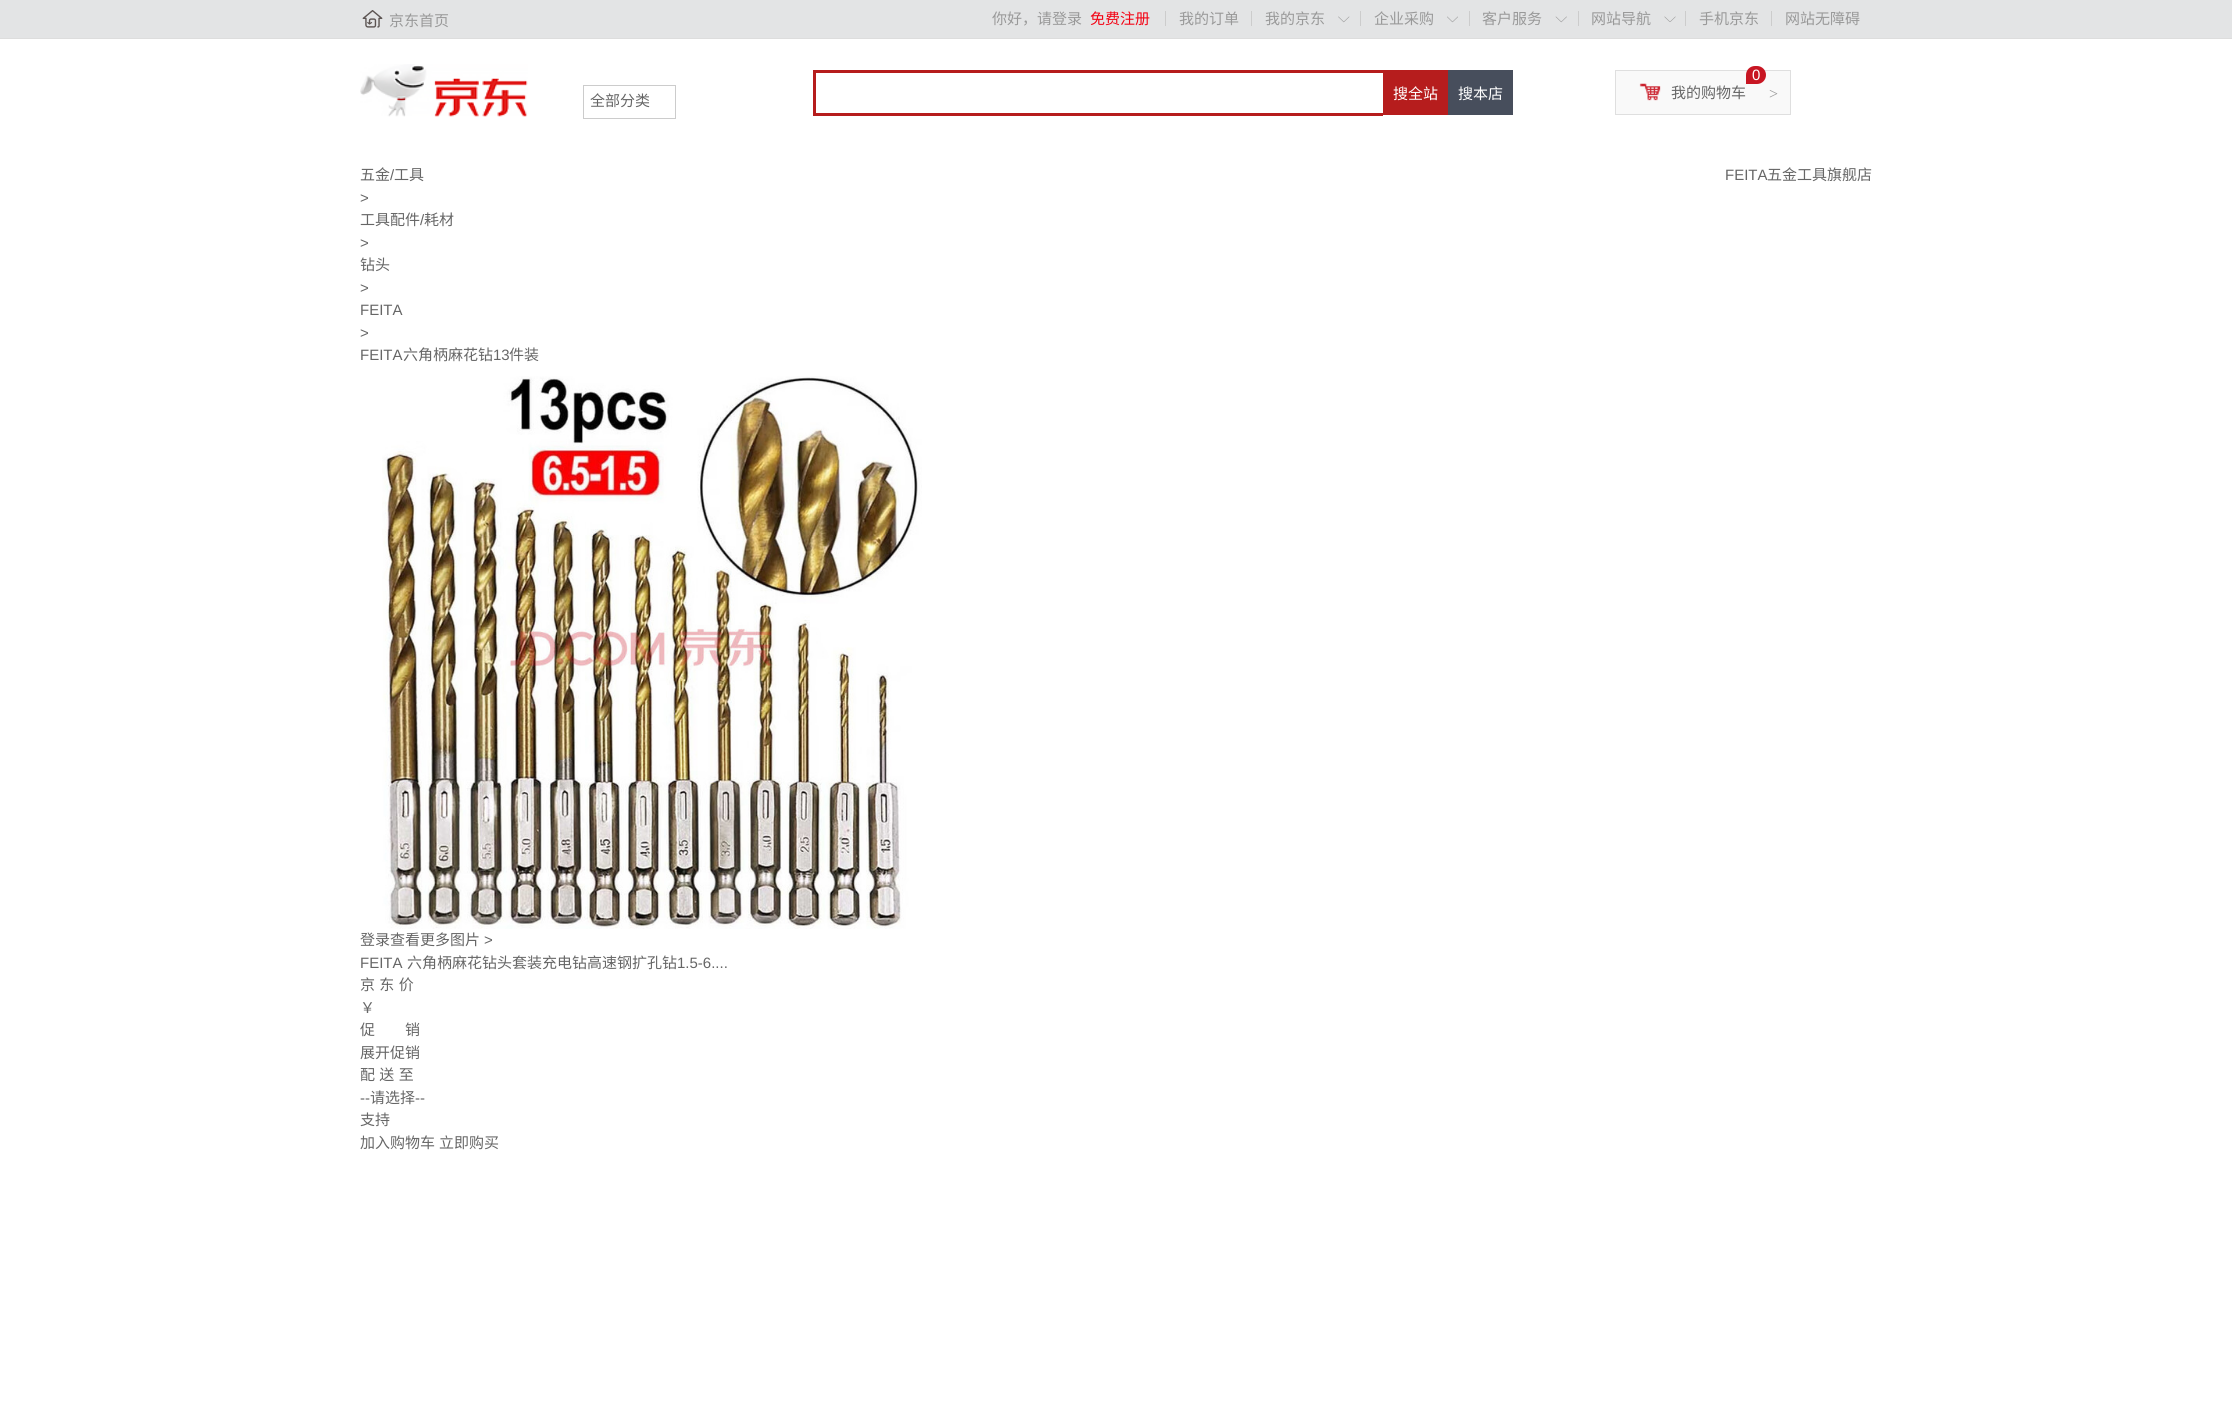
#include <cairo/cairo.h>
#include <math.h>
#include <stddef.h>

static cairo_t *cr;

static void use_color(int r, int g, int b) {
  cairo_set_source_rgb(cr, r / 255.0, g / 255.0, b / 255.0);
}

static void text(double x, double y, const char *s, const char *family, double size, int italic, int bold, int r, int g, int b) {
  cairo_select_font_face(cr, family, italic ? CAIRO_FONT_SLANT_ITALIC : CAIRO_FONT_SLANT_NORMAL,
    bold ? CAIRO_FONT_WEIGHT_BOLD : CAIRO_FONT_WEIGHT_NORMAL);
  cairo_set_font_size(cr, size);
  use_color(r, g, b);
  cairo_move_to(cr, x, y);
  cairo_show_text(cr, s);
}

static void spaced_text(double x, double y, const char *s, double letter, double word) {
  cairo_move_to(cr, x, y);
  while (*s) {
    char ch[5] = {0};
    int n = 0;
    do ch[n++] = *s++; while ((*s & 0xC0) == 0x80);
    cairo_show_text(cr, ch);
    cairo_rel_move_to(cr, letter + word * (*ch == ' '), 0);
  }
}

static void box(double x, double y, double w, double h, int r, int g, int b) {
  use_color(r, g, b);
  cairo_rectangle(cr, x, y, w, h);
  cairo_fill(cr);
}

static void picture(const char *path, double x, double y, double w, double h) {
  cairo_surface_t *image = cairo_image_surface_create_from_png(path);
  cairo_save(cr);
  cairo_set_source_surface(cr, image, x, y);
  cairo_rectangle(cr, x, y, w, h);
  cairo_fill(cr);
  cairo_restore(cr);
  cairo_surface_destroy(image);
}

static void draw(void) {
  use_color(255, 255, 255);
  cairo_paint(cr);
  box(0, 0, 2232, 38, 227, 228, 229);
  box(0, 38, 2232, 1, 221, 221, 221);
  picture("img_01.png", 362, 10, 21, 18);
  box(1165, 11, 1, 15, 204, 204, 204);
  box(1251, 11, 1, 15, 204, 204, 204);
  picture("img_02.png", 1338, 16, 12, 7);
  box(1360, 11, 1, 15, 204, 204, 204);
  picture("img_03.png", 1447, 16, 11, 7);
  box(1469, 11, 1, 15, 204, 204, 204);
  picture("img_04.png", 1555, 16, 12, 7);
  box(1578, 11, 1, 15, 204, 204, 204);
  picture("img_05.png", 1664, 16, 12, 6);
  box(1685, 11, 1, 15, 204, 204, 204);
  box(1771, 11, 1, 15, 204, 204, 204);
  picture("img_06.png", 360, 64, 168, 53);
  cairo_rectangle(cr, 583.5, 85.5, 92, 33);
  cairo_set_line_width(cr, 1);
  cairo_stroke(cr);
  box(813, 70, 570, 3, 182, 29, 29);
  box(813, 113, 570, 3, 182, 29, 29);
  box(813, 70, 3, 45, 182, 29, 29);
  box(1383, 70, 65, 45, 182, 29, 29);
  box(1448, 70, 65, 45, 71, 78, 92);
  use_color(249, 249, 249);
  cairo_rectangle(cr, 1615.5, 70.5, 175, 44);
  cairo_fill_preserve(cr);
  use_color(223, 223, 223);
  cairo_stroke(cr);
  use_color(200, 22, 35);
  cairo_new_path(cr);
  cairo_move_to(cr, 1755, 66);
  cairo_line_to(cr, 1757, 66);
  cairo_curve_to(cr, 1762, 66, 1766, 70, 1766, 75);
  cairo_curve_to(cr, 1766, 80, 1762, 84, 1757, 84);
  cairo_line_to(cr, 1746, 84);
  cairo_line_to(cr, 1746, 75);
  cairo_curve_to(cr, 1746, 70, 1750, 66, 1755, 66);
  cairo_close_path(cr);
  cairo_fill(cr);
  picture("img_07.png", 1639, 83, 22, 18);
  picture("img_08.png", 382, 376, 540, 553);
  text(389, 26, "京东首页", "Noto Sans CJK SC", 15, 0, 0, 153, 153, 153);
  text(992, 24, "你好，请登录", "Noto Sans CJK SC", 15, 0, 0, 153, 153, 153);
  text(1090, 24, "免费注册", "Noto Sans CJK SC", 15, 0, 0, 243, 2, 19);
  text(1179, 24, "我的订单", "Noto Sans CJK SC", 15, 0, 0, 153, 153, 153);
  text(1265, 24, "我的京东", "Noto Sans CJK SC", 15, 0, 0, 153, 153, 153);
  text(1374, 24, "企业采购", "Noto Sans CJK SC", 15, 0, 0, 153, 153, 153);
  text(1482, 24, "客户服务", "Noto Sans CJK SC", 15, 0, 0, 153, 153, 153);
  text(1591, 24, "网站导航", "Noto Sans CJK SC", 15, 0, 0, 153, 153, 153);
  text(1699, 24, "手机京东", "Noto Sans CJK SC", 15, 0, 0, 153, 153, 153);
  text(1785, 24, "网站无障碍", "Noto Sans CJK SC", 15, 0, 0, 153, 153, 153);
  text(590, 106, "全部分类", "Noto Sans CJK SC", 15, 0, 0, 102, 102, 102);
  text(1393, 99, "搜全站", "Noto Sans CJK SC", 15, 0, 0, 255, 255, 255);
  text(1458, 99, "搜本店", "Noto Sans CJK SC", 15, 0, 0, 255, 255, 255);
  text(1752, 80, "0", "Liberation Sans", 15, 0, 0, 255, 255, 255);
  text(1671, 98, "我的购物车", "Noto Sans CJK SC", 15, 0, 0, 102, 102, 102);
  text(1769, 99, ">", "Liberation Serif", 16, 0, 0, 153, 153, 153);
  text(360, 180, "五金", "Noto Sans CJK SC", 15, 0, 0, 102, 102, 102);
  text(390, 180, "/", "Liberation Sans", 15, 0, 0, 102, 102, 102);
  text(394, 180, "工具", "Noto Sans CJK SC", 15, 0, 0, 102, 102, 102);
  text(360, 203, ">", "Liberation Sans", 15, 0, 0, 102, 102, 102);
  text(360, 225, "工具配件", "Noto Sans CJK SC", 15, 0, 0, 102, 102, 102);
  text(420, 225, "/", "Liberation Sans", 15, 0, 0, 102, 102, 102);
  text(424, 225, "耗材", "Noto Sans CJK SC", 15, 0, 0, 102, 102, 102);
  text(360, 248, ">", "Liberation Sans", 15, 0, 0, 102, 102, 102);
  text(360, 270, "钻头", "Noto Sans CJK SC", 15, 0, 0, 102, 102, 102);
  text(360, 293, ">", "Liberation Sans", 15, 0, 0, 102, 102, 102);
  text(360, 315, "FEITA", "Liberation Sans", 15, 0, 0, 102, 102, 102);
  text(360, 338, ">", "Liberation Sans", 15, 0, 0, 102, 102, 102);
  text(360, 360, "FEITA", "Liberation Sans", 15, 0, 0, 102, 102, 102);
  text(403, 360, "六角柄麻花钻", "Noto Sans CJK SC", 15, 0, 0, 102, 102, 102);
  text(493, 360, "13", "Liberation Sans", 15, 0, 0, 102, 102, 102);
  text(509, 360, "件装", "Noto Sans CJK SC", 15, 0, 0, 102, 102, 102);
  text(1725, 180, "FEITA", "Liberation Sans", 15, 0, 0, 102, 102, 102);
  text(1767, 180, "五金工具旗舰店", "Noto Sans CJK SC", 15, 0, 0, 102, 102, 102);
  text(360, 945, "登录查看更多图片", "Noto Sans CJK SC", 15, 0, 0, 102, 102, 102);
  text(484, 945, ">", "Liberation Sans", 15, 0, 0, 102, 102, 102);
  text(360, 968, "FEITA", "Liberation Sans", 15, 0, 0, 102, 102, 102);
  text(407, 968, "六角柄麻花钻头套装充电钻高速钢扩孔钻", "Noto Sans CJK SC", 15, 0, 0, 102, 102, 102);
  text(677, 968, "1.5-6....", "Liberation Sans", 15, 0, 0, 102, 102, 102);
  cairo_select_font_face(cr, "Noto Sans CJK SC", CAIRO_FONT_SLANT_NORMAL, CAIRO_FONT_WEIGHT_NORMAL);
  spaced_text(360, 990, "京 东 价", 0, 1);
  text(360, 1013, "￥", "Noto Sans CJK SC", 15, 0, 0, 102, 102, 102);
  text(360, 1035, "促　　销", "Noto Sans CJK SC", 15, 0, 0, 102, 102, 102);
  text(360, 1058, "展开促销", "Noto Sans CJK SC", 15, 0, 0, 102, 102, 102);
  spaced_text(360, 1080, "配 送 至", 0, 1);
  text(360, 1103, "--", "Liberation Sans", 15, 0, 0, 102, 102, 102);
  text(370, 1103, "请选择", "Noto Sans CJK SC", 15, 0, 0, 102, 102, 102);
  text(415, 1103, "--", "Liberation Sans", 15, 0, 0, 102, 102, 102);
  text(360, 1125, "支持", "Noto Sans CJK SC", 15, 0, 0, 102, 102, 102);
  text(360, 1148, "加入购物车", "Noto Sans CJK SC", 15, 0, 0, 102, 102, 102);
  text(439, 1148, "立即购买", "Noto Sans CJK SC", 15, 0, 0, 102, 102, 102);
}

int main(void) {
  cairo_surface_t *surface = cairo_image_surface_create(CAIRO_FORMAT_RGB24, 2232, 1415);
  cr = cairo_create(surface);
  cairo_font_options_t *options = cairo_font_options_create();
  cairo_font_options_set_hint_metrics(options, CAIRO_HINT_METRICS_OFF);
  cairo_font_options_set_hint_style(options, CAIRO_HINT_STYLE_NONE);
  cairo_set_font_options(cr, options);
  cairo_set_miter_limit(cr, 4);
  draw();
  cairo_surface_write_to_png(surface, "out.png");
  cairo_font_options_destroy(options);
  cairo_destroy(cr);
  cairo_surface_destroy(surface);
  return 0;
}
